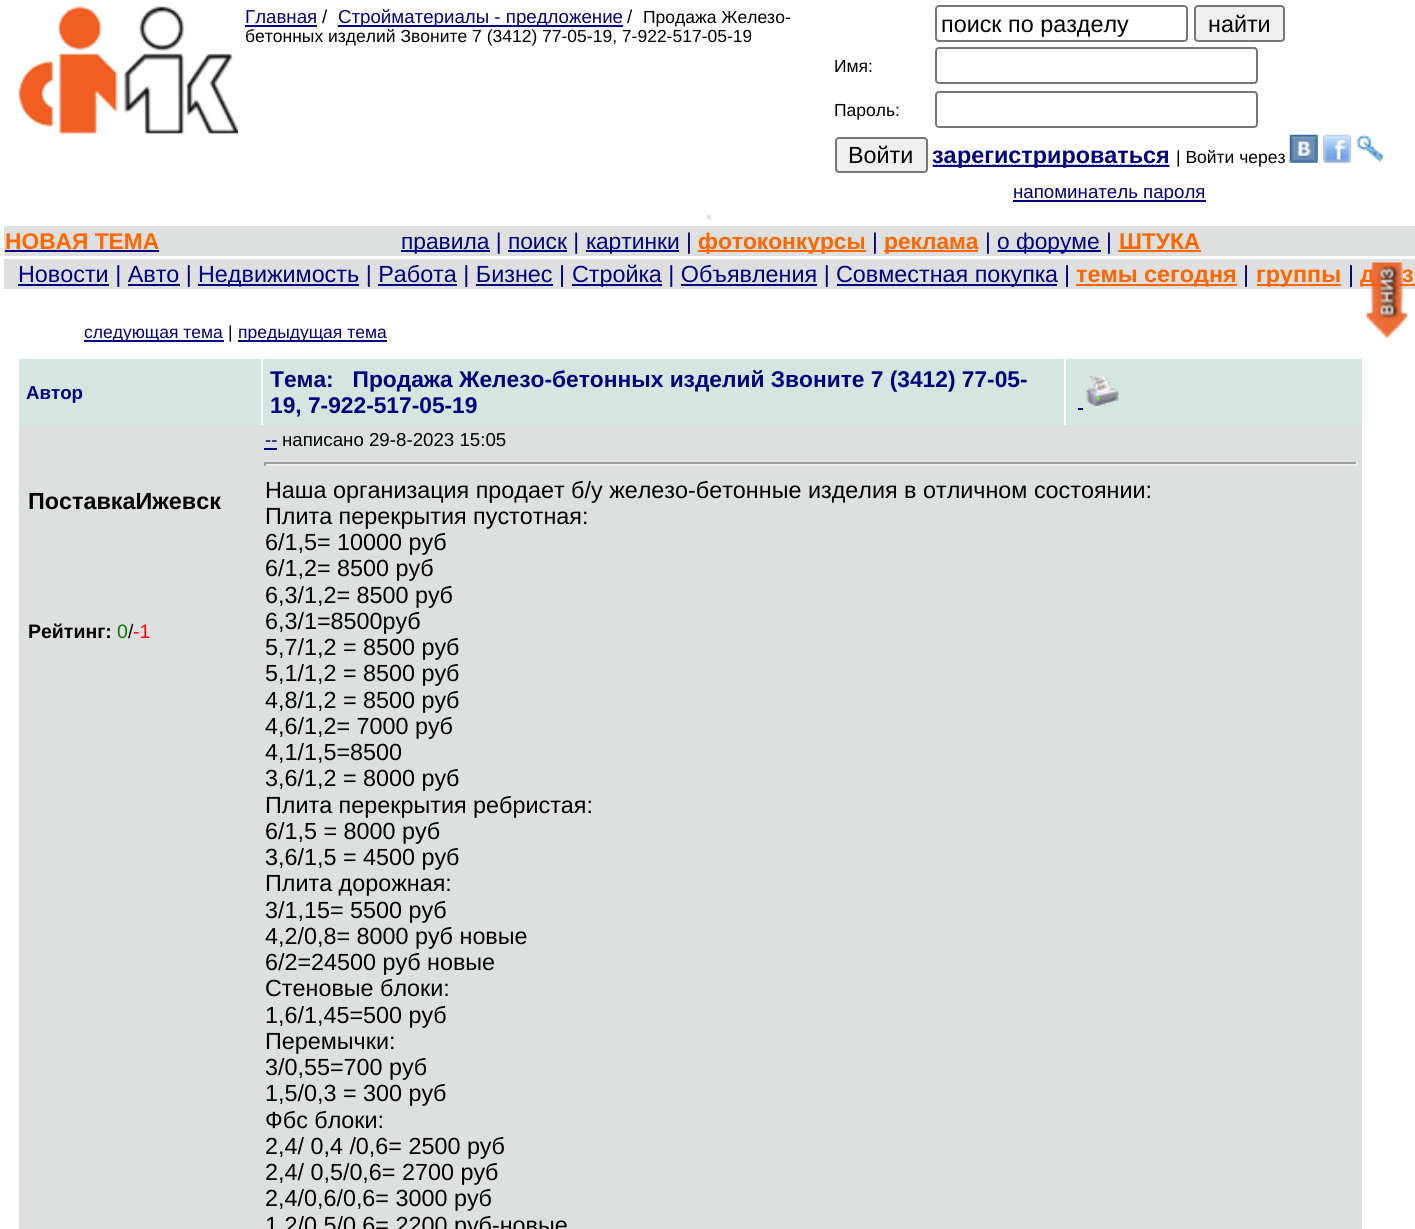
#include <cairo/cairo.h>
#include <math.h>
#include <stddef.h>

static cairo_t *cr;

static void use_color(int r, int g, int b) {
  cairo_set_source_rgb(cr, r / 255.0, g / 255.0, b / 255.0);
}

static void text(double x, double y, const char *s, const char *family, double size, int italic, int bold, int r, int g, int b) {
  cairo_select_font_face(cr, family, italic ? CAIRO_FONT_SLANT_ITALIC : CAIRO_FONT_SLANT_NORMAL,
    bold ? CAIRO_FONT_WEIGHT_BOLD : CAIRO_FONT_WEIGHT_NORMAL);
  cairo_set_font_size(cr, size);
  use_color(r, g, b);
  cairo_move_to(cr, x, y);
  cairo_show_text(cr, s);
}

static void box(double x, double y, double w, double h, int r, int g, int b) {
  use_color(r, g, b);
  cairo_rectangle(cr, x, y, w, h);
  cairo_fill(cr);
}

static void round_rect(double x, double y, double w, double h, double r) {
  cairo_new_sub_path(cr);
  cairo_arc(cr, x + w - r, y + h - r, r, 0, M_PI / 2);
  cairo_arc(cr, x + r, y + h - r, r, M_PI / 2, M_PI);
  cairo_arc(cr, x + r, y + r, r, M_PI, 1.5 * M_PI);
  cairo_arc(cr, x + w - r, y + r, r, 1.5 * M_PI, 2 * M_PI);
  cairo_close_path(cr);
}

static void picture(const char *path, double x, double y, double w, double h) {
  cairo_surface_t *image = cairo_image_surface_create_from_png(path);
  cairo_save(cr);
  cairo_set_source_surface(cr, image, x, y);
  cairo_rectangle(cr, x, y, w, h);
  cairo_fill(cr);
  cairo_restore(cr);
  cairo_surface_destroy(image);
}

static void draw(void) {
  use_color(255, 255, 255);
  cairo_paint(cr);
  picture("img_01.png", 19, 6, 219, 128);
  box(245, 25, 72, 2, 0, 0, 128);
  box(338, 25, 285, 2, 0, 0, 128);
  round_rect(936, 6, 251, 35, 3);
  use_color(118, 118, 118);
  cairo_stroke(cr);
  use_color(239, 239, 239);
  round_rect(1195, 6, 89, 35, 3);
  cairo_fill_preserve(cr);
  use_color(118, 118, 118);
  cairo_stroke(cr);
  round_rect(936, 48, 321, 35, 3);
  cairo_stroke(cr);
  round_rect(936, 92, 321, 35, 3);
  cairo_stroke(cr);
  use_color(239, 239, 239);
  round_rect(836, 138, 91, 34, 3);
  cairo_fill_preserve(cr);
  use_color(118, 118, 118);
  cairo_stroke(cr);
  cairo_new_path(cr);
  cairo_move_to(cr, 932.5, 165.5);
  cairo_line_to(cr, 957, 165.5);
  use_color(0, 0, 128);
  cairo_set_line_width(cr, 1.8);
  cairo_set_dash(cr, (double[]){1.75, 1.75}, 2, 0);
  cairo_stroke(cr);
  box(933, 165, 24, 2, 0, 0, 128);
  cairo_new_path(cr);
  cairo_move_to(cr, 957, 165.5);
  cairo_line_to(cr, 994, 165.5);
  cairo_stroke(cr);
  box(957, 165, 37, 2, 0, 0, 128);
  cairo_new_path(cr);
  cairo_move_to(cr, 994, 165.5);
  cairo_line_to(cr, 1169.5, 165.5);
  cairo_stroke(cr);
  box(994, 165, 175, 2, 0, 0, 128);
  picture("img_02.png", 1289, 134, 29, 29);
  picture("img_03.png", 1323, 134, 28, 29);
  picture("img_04.png", 1356, 134, 29, 29);
  box(1013, 200, 193, 2, 0, 0, 128);
  box(707, 215, 4, 4, 222, 223, 223);
  box(4, 226, 1411, 30, 222, 223, 223);
  box(5, 250, 154, 2, 0, 0, 128);
  box(401, 250, 89, 2, 0, 0, 128);
  box(586, 250, 93, 2, 0, 0, 128);
  box(698, 250, 168, 2, 255, 102, 0);
  box(884, 250, 94, 2, 255, 102, 0);
  cairo_new_path(cr);
  cairo_move_to(cr, 997.5, 251);
  cairo_line_to(cr, 1100, 251);
  use_color(0, 0, 128);
  cairo_stroke(cr);
  box(998, 250, 103, 2, 0, 0, 128);
  box(1118, 250, 83, 2, 255, 102, 0);
  box(508, 250, 59, 2, 0, 0, 128);
  box(4, 259, 1411, 30, 222, 223, 223);
  box(18, 284, 91, 2, 0, 0, 128);
  box(128, 284, 52, 2, 0, 0, 128);
  box(198, 284, 161, 2, 0, 0, 128);
  box(378, 284, 79, 2, 0, 0, 128);
  box(476, 284, 77, 2, 0, 0, 128);
  box(572, 284, 90, 2, 0, 0, 128);
  box(681, 284, 136, 2, 0, 0, 128);
  box(837, 284, 220, 2, 0, 0, 128);
  box(1076, 284, 161, 2, 255, 102, 0);
  box(1257, 284, 84, 2, 255, 102, 0);
  box(1360, 284, 55, 2, 255, 102, 0);
  box(84, 340, 140, 2, 0, 0, 128);
  box(238, 340, 149, 2, 0, 0, 128);
  box(19, 359, 1343, 66, 213, 230, 225);
  box(1064, 359, 2, 66, 255, 255, 255);
  box(261, 359, 2, 66, 255, 255, 255);
  picture("img_06.png", 1086, 376, 33, 30);
  box(1078, 408, 5, 2, 0, 0, 128);
  box(19, 425, 1343, 804, 222, 223, 223);
  box(264, 448, 13, 2, 0, 0, 128);
  box(264, 462, 1094, 2, 159, 159, 159);
  box(1356, 462, 2, 4, 238, 238, 238);
  box(264, 464, 1094, 2, 238, 238, 238);
  box(264, 462, 2, 4, 159, 159, 159);
  text(245, 23, "Главная", "Liberation Sans", 18.7, 0, 0, 0, 0, 128);
  text(322, 23, "/", "Liberation Sans", 18.7, 0, 0, 0, 0, 0);
  text(338, 23, "Стройматериалы - предложение", "Liberation Sans", 18.7, 0, 0, 0, 0, 128);
  text(627, 23, "/", "Liberation Sans", 18.7, 0, 0, 0, 0, 0);
  text(643, 23, "Продажа Железо-", "Liberation Sans", 17.5, 0, 0, 0, 0, 0);
  text(245, 42, "бетонных изделий Звоните 7 (3412) 77-05-19, 7-922-517-05-19", "Liberation Sans", 17.5, 0, 0, 0, 0, 0);
  text(941, 32, "поиск по разделу", "Liberation Sans", 23.35, 0, 0, 0, 0, 0);
  text(1208, 32, "найти", "Liberation Sans", 23.35, 0, 0, 0, 0, 0);
  text(834, 72, "Имя:", "Liberation Sans", 17.5, 0, 0, 0, 0, 0);
  text(834, 116, "Пароль:", "Liberation Sans", 17.5, 0, 0, 0, 0, 0);
  text(848, 163, "Войти", "Liberation Sans", 23.35, 0, 0, 0, 0, 0);
  text(932, 163, "за", "Liberation Sans", 23.35, 0, 1, 0, 0, 128);
  text(957, 163, "рег", "Liberation Sans", 23.35, 0, 1, 0, 0, 128);
  text(994, 163, "истрироваться", "Liberation Sans", 23.35, 0, 1, 0, 0, 128);
  text(1176, 163, "| Войти через", "Liberation Sans", 17.5, 0, 0, 0, 0, 0);
  text(1013, 198, "напоминатель пароля", "Liberation Sans", 18.7, 0, 0, 0, 0, 128);
  text(5, 249, "НОВАЯ ТЕМА", "Liberation Sans", 22.75, 0, 1, 255, 102, 0);
  text(401, 249, "правила | поиск |", "Liberation Sans", 22.75, 0, 0, 0, 0, 128);
  text(586, 249, "картинки |", "Liberation Sans", 22.75, 0, 0, 0, 0, 128);
  text(698, 249, "фотоконкурсы", "Liberation Sans", 22.75, 0, 1, 255, 102, 0);
  text(872, 249, "|", "Liberation Sans", 22.75, 0, 0, 0, 0, 128);
  text(884, 249, "реклама", "Liberation Sans", 22.75, 0, 1, 255, 102, 0);
  text(985, 249, "|", "Liberation Sans", 22.75, 0, 0, 0, 0, 128);
  text(997, 249, "о форуме |", "Liberation Sans", 22.75, 0, 0, 0, 0, 128);
  text(1119, 249, "ШТУКА", "Liberation Sans", 22.75, 0, 1, 255, 102, 0);
  text(18, 282, "Новости | Авто |", "Liberation Sans", 23.35, 0, 0, 0, 0, 128);
  text(198, 282, "Недвижимость | Работа | Бизнес |", "Liberation Sans", 23.35, 0, 0, 0, 0, 128);
  text(572, 282, "Стройка | Объявления |", "Liberation Sans", 23.35, 0, 0, 0, 0, 128);
  text(836, 282, "Совместная покупка", "Liberation Sans", 23.35, 0, 0, 0, 0, 128);
  text(1064, 282, "|", "Liberation Sans", 23.35, 0, 0, 0, 0, 128);
  text(1076, 282, "темы сегодня", "Liberation Sans", 23.35, 0, 1, 255, 102, 0);
  text(1243, 282, "|", "Liberation Sans", 23.35, 0, 0, 0, 0, 128);
  text(1256, 282, "группы", "Liberation Sans", 23.35, 0, 1, 255, 102, 0);
  text(1348, 282, "|", "Liberation Sans", 23.35, 0, 0, 0, 0, 128);
  text(1360, 282, "д", "Liberation Sans", 23.35, 0, 1, 255, 102, 0);
  text(1402, 282, "з", "Liberation Sans", 23.35, 0, 1, 255, 102, 0);
  text(84, 338, "следующая тема", "Liberation Sans", 17.5, 0, 0, 0, 0, 128);
  text(228, 338, "|", "Liberation Sans", 17.5, 0, 0, 0, 0, 0);
  text(238, 338, "предыдущая тема", "Liberation Sans", 17.5, 0, 0, 0, 0, 128);
  picture("img_05.png", 1366, 262, 42, 77);
  text(26, 399, "Автор", "Liberation Sans", 18.7, 0, 1, 0, 0, 128);
  text(270, 387, "Тема:   Продажа Железо-бетонных изделий Звоните 7 (3412) 77-05-", "Liberation Sans", 22.75, 0, 1, 0, 0, 128);
  text(270, 413, "19, 7-922-517-05-19", "Liberation Sans", 22.75, 0, 1, 0, 0, 128);
  text(28, 509, "ПоставкаИжевск", "Liberation Sans", 23.35, 0, 1, 0, 0, 0);
  text(28, 638, "Рейтинг:", "Liberation Sans", 19.5, 0, 1, 0, 0, 0);
  text(117, 638, "0", "Liberation Sans", 19.5, 0, 0, 0, 128, 0);
  text(128, 638, "/", "Liberation Sans", 19.5, 0, 0, 0, 0, 0);
  text(133, 638, "-1", "Liberation Sans", 19.5, 0, 0, 255, 0, 0);
  text(265, 446, "--", "Liberation Sans", 18.7, 0, 0, 0, 0, 128);
  text(282, 446, "написано 29-8-2023 15:05", "Liberation Sans", 18.7, 0, 0, 0, 0, 0);
  text(265, 498, "Наша организация продает б/у железо-бетонные изделия в отличном состоянии:", "Liberation Sans", 23.35, 0, 0, 0, 0, 0);
  text(265, 524, "Плита перекрытия пустотная:", "Liberation Sans", 23.35, 0, 0, 0, 0, 0);
  text(265, 550, "6/1,5= 10000 руб", "Liberation Sans", 23.35, 0, 0, 0, 0, 0);
  text(265, 576, "6/1,2= 8500 руб", "Liberation Sans", 23.35, 0, 0, 0, 0, 0);
  text(265, 603, "6,3/1,2= 8500 руб", "Liberation Sans", 23.35, 0, 0, 0, 0, 0);
  text(265, 629, "6,3/1=8500руб", "Liberation Sans", 23.35, 0, 0, 0, 0, 0);
  text(265, 655, "5,7/1,2 = 8500 руб", "Liberation Sans", 23.35, 0, 0, 0, 0, 0);
  text(265, 681, "5,1/1,2 = 8500 руб", "Liberation Sans", 23.35, 0, 0, 0, 0, 0);
  text(265, 708, "4,8/1,2 = 8500 руб", "Liberation Sans", 23.35, 0, 0, 0, 0, 0);
  text(265, 734, "4,6/1,2= 7000 руб", "Liberation Sans", 23.35, 0, 0, 0, 0, 0);
  text(265, 760, "4,1/1,5=8500", "Liberation Sans", 23.35, 0, 0, 0, 0, 0);
  text(265, 786, "3,6/1,2 = 8000 руб", "Liberation Sans", 23.35, 0, 0, 0, 0, 0);
  text(265, 813, "Плита перекрытия ребристая:", "Liberation Sans", 23.35, 0, 0, 0, 0, 0);
  text(265, 839, "6/1,5 = 8000 руб", "Liberation Sans", 23.35, 0, 0, 0, 0, 0);
  text(265, 865, "3,6/1,5 = 4500 руб", "Liberation Sans", 23.35, 0, 0, 0, 0, 0);
  text(265, 891, "Плита дорожная:", "Liberation Sans", 23.35, 0, 0, 0, 0, 0);
  text(265, 918, "3/1,15= 5500 руб", "Liberation Sans", 23.35, 0, 0, 0, 0, 0);
  text(265, 944, "4,2/0,8= 8000 руб новые", "Liberation Sans", 23.35, 0, 0, 0, 0, 0);
  text(265, 970, "6/2=24500 руб новые", "Liberation Sans", 23.35, 0, 0, 0, 0, 0);
  text(265, 996, "Стеновые блоки:", "Liberation Sans", 23.35, 0, 0, 0, 0, 0);
  text(265, 1023, "1,6/1,45=500 руб", "Liberation Sans", 23.35, 0, 0, 0, 0, 0);
  text(265, 1049, "Перемычки:", "Liberation Sans", 23.35, 0, 0, 0, 0, 0);
  text(265, 1075, "3/0,55=700 руб", "Liberation Sans", 23.35, 0, 0, 0, 0, 0);
  text(265, 1101, "1,5/0,3 = 300 руб", "Liberation Sans", 23.35, 0, 0, 0, 0, 0);
  text(265, 1128, "Фбс блоки:", "Liberation Sans", 23.35, 0, 0, 0, 0, 0);
  text(265, 1154, "2,4/ 0,4 /0,6= 2500 руб", "Liberation Sans", 23.35, 0, 0, 0, 0, 0);
  text(265, 1180, "2,4/ 0,5/0,6= 2700 руб", "Liberation Sans", 23.35, 0, 0, 0, 0, 0);
  text(265, 1206, "2,4/0,6/0,6= 3000 руб", "Liberation Sans", 23.35, 0, 0, 0, 0, 0);
  text(265, 1233, "1,2/0,5/0,6= 2200 руб-новые", "Liberation Sans", 23.35, 0, 0, 0, 0, 0);
}

int main(void) {
  cairo_surface_t *surface = cairo_image_surface_create(CAIRO_FORMAT_RGB24, 1415, 1229);
  cr = cairo_create(surface);
  cairo_font_options_t *options = cairo_font_options_create();
  cairo_font_options_set_hint_metrics(options, CAIRO_HINT_METRICS_OFF);
  cairo_font_options_set_hint_style(options, CAIRO_HINT_STYLE_NONE);
  cairo_set_font_options(cr, options);
  cairo_set_miter_limit(cr, 4);
  draw();
  cairo_surface_write_to_png(surface, "out.png");
  cairo_font_options_destroy(options);
  cairo_destroy(cr);
  cairo_surface_destroy(surface);
  return 0;
}
